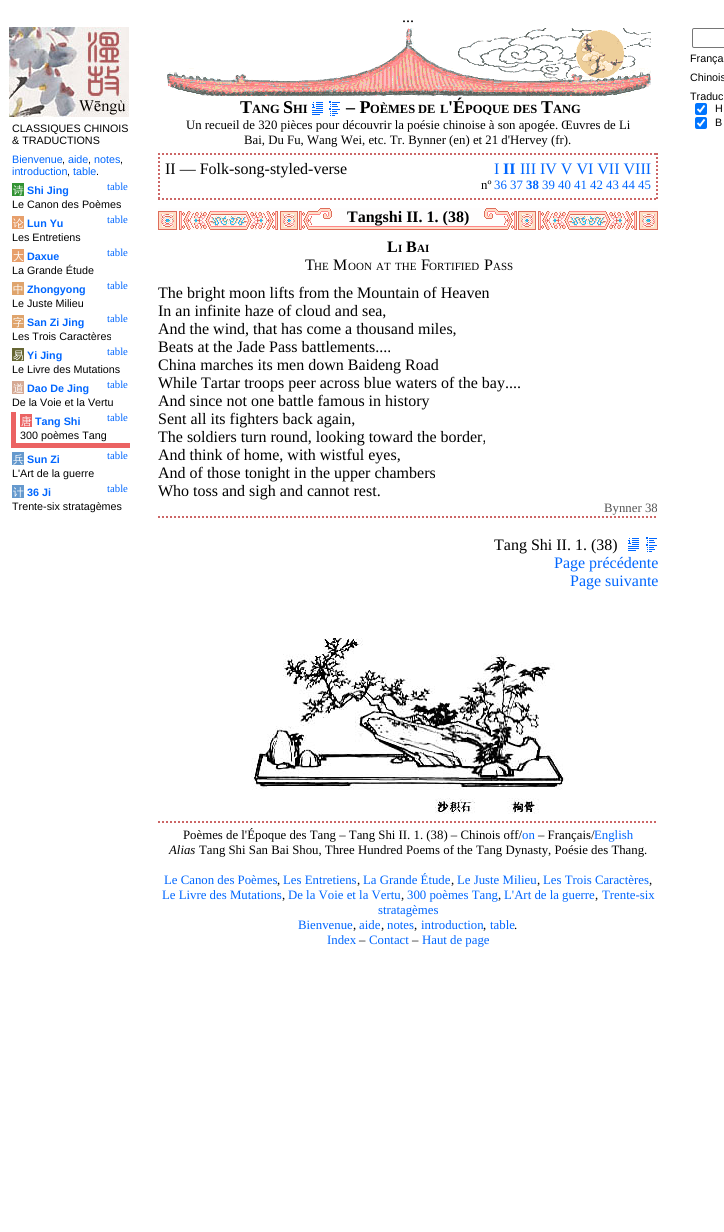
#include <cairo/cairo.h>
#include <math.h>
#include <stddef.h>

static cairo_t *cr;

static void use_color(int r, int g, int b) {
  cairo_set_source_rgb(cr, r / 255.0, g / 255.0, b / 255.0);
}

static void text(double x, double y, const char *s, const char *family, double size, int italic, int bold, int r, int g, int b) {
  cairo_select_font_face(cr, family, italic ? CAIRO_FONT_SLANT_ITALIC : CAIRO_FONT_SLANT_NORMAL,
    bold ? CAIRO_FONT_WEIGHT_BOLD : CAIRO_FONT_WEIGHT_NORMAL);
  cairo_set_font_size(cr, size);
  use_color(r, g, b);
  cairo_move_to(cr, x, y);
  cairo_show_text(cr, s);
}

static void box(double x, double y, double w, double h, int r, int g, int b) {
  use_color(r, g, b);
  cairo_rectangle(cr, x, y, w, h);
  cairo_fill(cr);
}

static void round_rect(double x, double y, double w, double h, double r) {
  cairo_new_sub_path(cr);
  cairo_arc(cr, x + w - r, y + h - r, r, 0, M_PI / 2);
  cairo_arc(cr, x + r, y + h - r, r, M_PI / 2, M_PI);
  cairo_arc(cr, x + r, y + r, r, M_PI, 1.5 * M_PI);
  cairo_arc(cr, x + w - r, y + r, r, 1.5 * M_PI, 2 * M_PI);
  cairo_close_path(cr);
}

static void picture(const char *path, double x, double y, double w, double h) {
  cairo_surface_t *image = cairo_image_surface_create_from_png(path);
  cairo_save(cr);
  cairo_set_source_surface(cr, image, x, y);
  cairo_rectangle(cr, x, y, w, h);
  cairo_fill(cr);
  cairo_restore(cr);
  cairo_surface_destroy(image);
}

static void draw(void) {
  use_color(255, 255, 255);
  cairo_paint(cr);
  picture("img_01.png", 9, 27, 120, 90);
  box(12, 183, 12, 13, 50, 147, 51);
  box(12, 216, 12, 13, 231, 159, 107);
  box(12, 249, 12, 13, 231, 159, 107);
  box(12, 282, 12, 13, 223, 164, 108);
  box(12, 315, 12, 13, 223, 164, 108);
  box(12, 348, 12, 13, 102, 102, 51);
  box(12, 381, 12, 13, 213, 169, 148);
  box(11, 443, 119, 5, 235, 99, 99);
  box(11, 412, 5, 36, 235, 99, 99);
  box(20, 414, 12, 13, 235, 99, 99);
  box(12, 452, 12, 13, 101, 153, 205);
  box(12, 485, 12, 13, 101, 153, 205);
  picture("img_02.png", 167, 28, 484, 68);
  picture("img_03.png", 312, 102, 11, 13);
  picture("img_04.png", 329, 101, 11, 15);
  cairo_new_path(cr);
  cairo_move_to(cr, 158, 154);
  cairo_line_to(cr, 658, 154);
  use_color(204, 102, 102);
  cairo_set_dash(cr, (double[]){2, 2}, 2, 0);
  cairo_stroke(cr);
  cairo_new_path(cr);
  cairo_move_to(cr, 657, 153);
  cairo_line_to(cr, 657, 200);
  cairo_stroke(cr);
  cairo_new_path(cr);
  cairo_move_to(cr, 158, 199);
  cairo_line_to(cr, 658, 199);
  cairo_stroke(cr);
  cairo_new_path(cr);
  cairo_move_to(cr, 159, 153);
  cairo_line_to(cr, 159, 200);
  cairo_stroke(cr);
  picture("img_05.png", 158, 208, 500, 22);
  cairo_new_path(cr);
  cairo_move_to(cr, 158, 517);
  cairo_line_to(cr, 658, 517);
  cairo_stroke(cr);
  picture("img_03.png", 628, 538, 11, 13);
  picture("img_04.png", 646, 537, 11, 15);
  picture("img_06.png", 251, 638, 318, 176);
  cairo_new_path(cr);
  cairo_move_to(cr, 158, 822);
  cairo_line_to(cr, 658, 822);
  cairo_stroke(cr);
  round_rect(692.5, 28.5, 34, 19, 1.5);
  use_color(118, 118, 118);
  cairo_set_line_width(cr, 1);
  cairo_set_dash(cr, NULL, 0, 0);
  cairo_stroke(cr);
  use_color(0, 117, 255);
  round_rect(695, 103, 12, 12, 2);
  cairo_fill(cr);
  cairo_new_path(cr);
  cairo_move_to(cr, 697.5, 109);
  cairo_line_to(cr, 700, 111.5);
  cairo_line_to(cr, 704.5, 105.5);
  use_color(255, 255, 255);
  cairo_set_line_width(cr, 1.9);
  cairo_stroke(cr);
  use_color(0, 117, 255);
  round_rect(695, 117, 12, 12, 2);
  cairo_fill(cr);
  cairo_new_path(cr);
  cairo_move_to(cr, 697.5, 123);
  cairo_line_to(cr, 700, 125.5);
  cairo_line_to(cr, 704.5, 119.5);
  use_color(255, 255, 255);
  cairo_stroke(cr);
  text(402, 22, "...", "Liberation Serif", 16, 0, 0, 0, 0, 0);
  text(12, 132, "CLASSIQUES CHINOIS", "Liberation Sans", 10.75, 0, 0, 0, 0, 0);
  text(12, 144, "& TRADUCTIONS", "Liberation Sans", 10.75, 0, 0, 0, 0, 0);
  text(12, 163, "Bienvenue", "Liberation Sans", 10.75, 0, 0, 0, 102, 255);
  text(62, 163, ",", "Liberation Sans", 10.75, 0, 0, 0, 0, 0);
  text(68, 163, "aide", "Liberation Sans", 10.75, 0, 0, 0, 102, 255);
  text(88, 163, ",", "Liberation Sans", 10.75, 0, 0, 0, 0, 0);
  text(94, 163, "notes", "Liberation Sans", 10.75, 0, 0, 0, 102, 255);
  text(120, 163, ",", "Liberation Sans", 10.75, 0, 0, 0, 0, 0);
  text(12, 175, "introduction", "Liberation Sans", 10.75, 0, 0, 0, 102, 255);
  text(67, 175, ",", "Liberation Sans", 10.75, 0, 0, 0, 0, 0);
  text(73, 175, "table", "Liberation Sans", 10.75, 0, 0, 0, 102, 255);
  text(96, 175, ".", "Liberation Sans", 10.75, 0, 0, 0, 0, 0);
  text(107, 190, "table", "Liberation Serif", 10.75, 0, 0, 0, 102, 255);
  text(13, 194, "诗", "WenQuanYi Zen Hei Medium", 10.75, 0, 0, 255, 255, 255);
  text(27, 194, "Shi Jing", "Liberation Sans", 10.75, 0, 1, 0, 102, 255);
  text(12, 208, "Le Canon des Poèmes", "Liberation Sans", 10.75, 0, 0, 0, 0, 0);
  text(13, 227, "论", "WenQuanYi Zen Hei Medium", 10.75, 0, 0, 255, 255, 255);
  text(27, 227, "Lun Yu", "Liberation Sans", 10.75, 0, 1, 0, 102, 255);
  text(12, 241, "Les Entretiens", "Liberation Sans", 10.75, 0, 0, 0, 0, 0);
  text(107, 223, "table", "Liberation Serif", 10.75, 0, 0, 0, 102, 255);
  text(13, 260, "大", "WenQuanYi Zen Hei Medium", 10.75, 0, 0, 255, 255, 255);
  text(27, 260, "Daxue", "Liberation Sans", 10.75, 0, 1, 0, 102, 255);
  text(12, 274, "La Grande Étude", "Liberation Sans", 10.75, 0, 0, 0, 0, 0);
  text(107, 256, "table", "Liberation Serif", 10.75, 0, 0, 0, 102, 255);
  text(13, 293, "中", "WenQuanYi Zen Hei Medium", 10.75, 0, 0, 255, 255, 255);
  text(27, 293, "Zhongyong", "Liberation Sans", 10.75, 0, 1, 0, 102, 255);
  text(12, 307, "Le Juste Milieu", "Liberation Sans", 10.75, 0, 0, 0, 0, 0);
  text(107, 289, "table", "Liberation Serif", 10.75, 0, 0, 0, 102, 255);
  text(13, 326, "字", "WenQuanYi Zen Hei Medium", 10.75, 0, 0, 255, 255, 255);
  text(27, 326, "San Zi Jing", "Liberation Sans", 10.75, 0, 1, 0, 102, 255);
  text(12, 340, "Les Trois Caractères", "Liberation Sans", 10.75, 0, 0, 0, 0, 0);
  text(107, 322, "table", "Liberation Serif", 10.75, 0, 0, 0, 102, 255);
  text(107, 355, "table", "Liberation Serif", 10.75, 0, 0, 0, 102, 255);
  text(13, 359, "易", "WenQuanYi Zen Hei Medium", 10.75, 0, 0, 255, 255, 255);
  text(27, 359, "Yi Jing", "Liberation Sans", 10.75, 0, 1, 0, 102, 255);
  text(12, 373, "Le Livre des Mutations", "Liberation Sans", 10.75, 0, 0, 0, 0, 0);
  text(13, 392, "道", "WenQuanYi Zen Hei Medium", 10.75, 0, 0, 255, 255, 255);
  text(27, 392, "Dao De Jing", "Liberation Sans", 10.75, 0, 1, 0, 102, 255);
  text(12, 406, "De la Voie et la Vertu", "Liberation Sans", 10.75, 0, 0, 0, 0, 0);
  text(107, 388, "table", "Liberation Serif", 10.75, 0, 0, 0, 102, 255);
  text(21, 425, "唐", "WenQuanYi Zen Hei Medium", 10.75, 0, 0, 255, 255, 255);
  text(35, 425, "Tang Shi", "Liberation Sans", 10.75, 0, 1, 0, 102, 255);
  text(20, 439, "300 poèmes Tang", "Liberation Sans", 10.75, 0, 0, 0, 0, 0);
  text(107, 421, "table", "Liberation Serif", 10.75, 0, 0, 0, 102, 255);
  text(13, 463, "兵", "WenQuanYi Zen Hei Medium", 10.75, 0, 0, 255, 255, 255);
  text(27, 463, "Sun Zi", "Liberation Sans", 10.75, 0, 1, 0, 102, 255);
  text(12, 477, "L'Art de la guerre", "Liberation Sans", 10.75, 0, 0, 0, 0, 0);
  text(107, 459, "table", "Liberation Serif", 10.75, 0, 0, 0, 102, 255);
  text(107, 492, "table", "Liberation Serif", 10.75, 0, 0, 0, 102, 255);
  text(13, 496, "计", "WenQuanYi Zen Hei Medium", 10.75, 0, 0, 255, 255, 255);
  text(27, 496, "36 Ji", "Liberation Sans", 10.75, 0, 1, 0, 102, 255);
  text(12, 510, "Trente-six stratagèmes", "Liberation Sans", 10.75, 0, 0, 0, 0, 0);
  text(240, 113, "T", "Liberation Serif", 18, 0, 1, 0, 0, 0);
  text(252, 113, "ANG", "Liberation Serif", 12.5, 0, 1, 0, 0, 0);
  text(283, 113, "S", "Liberation Serif", 18, 0, 1, 0, 0, 0);
  text(293, 113, "HI", "Liberation Serif", 12.5, 0, 1, 0, 0, 0);
  text(346, 113, "– P", "Liberation Serif", 18, 0, 1, 0, 0, 0);
  text(370, 113, "OÈMES", "Liberation Serif", 12.5, 0, 1, 0, 0, 0);
  text(418, 113, "DE", "Liberation Serif", 12.5, 0, 1, 0, 0, 0);
  text(440, 113, "L", "Liberation Serif", 12.5, 0, 1, 0, 0, 0);
  text(448, 113, "'É", "Liberation Serif", 18, 0, 1, 0, 0, 0);
  text(465, 113, "POQUE", "Liberation Serif", 12.5, 0, 1, 0, 0, 0);
  text(513, 113, "DES", "Liberation Serif", 12.5, 0, 1, 0, 0, 0);
  text(541, 113, "T", "Liberation Serif", 18, 0, 1, 0, 0, 0);
  text(553, 113, "ANG", "Liberation Serif", 12.5, 0, 1, 0, 0, 0);
  text(186, 129, "Un recueil de 320 pièces pour découvrir la poésie chinoise à son apogée. Œuvres de Li", "Liberation Serif", 12.8, 0, 0, 0, 0, 0);
  text(244, 144, "Bai, Du Fu, Wang Wei, etc. Tr. Bynner (en) et 21 d'Hervey (fr).", "Liberation Serif", 12.8, 0, 0, 0, 0, 0);
  text(165, 174, "II — Folk-song-styled-verse", "Liberation Serif", 16, 0, 0, 0, 0, 0);
  text(494, 174, "I", "Liberation Serif", 16, 0, 0, 0, 102, 255);
  text(503, 174, "II", "Liberation Serif", 16, 0, 1, 0, 102, 255);
  text(520, 174, "III IV V VI VII VIII", "Liberation Serif", 16, 0, 0, 0, 102, 255);
  text(481, 189, "nº", "Liberation Serif", 12.8, 0, 0, 0, 0, 0);
  text(494, 189, "36 37", "Liberation Serif", 12.8, 0, 0, 0, 102, 255);
  text(526, 189, "38", "Liberation Serif", 12.8, 0, 1, 0, 102, 255);
  text(542, 189, "39 40 41 42 43 44 45", "Liberation Serif", 12.8, 0, 0, 0, 102, 255);
  text(347, 222, "Tangshi II. 1. (38)", "Liberation Serif", 16, 0, 1, 0, 0, 0);
  text(387, 252, "L", "Liberation Serif", 16, 0, 1, 0, 0, 0);
  text(398, 252, "I", "Liberation Serif", 11, 0, 1, 0, 0, 0);
  text(406, 252, "B", "Liberation Serif", 16, 0, 1, 0, 0, 0);
  text(417, 252, "AI", "Liberation Serif", 11, 0, 1, 0, 0, 0);
  text(305, 270, "T", "Liberation Serif", 16, 0, 0, 0, 0, 0);
  text(314, 270, "HE", "Liberation Serif", 11, 0, 0, 0, 0, 0);
  text(333, 270, "M", "Liberation Serif", 16, 0, 0, 0, 0, 0);
  text(348, 270, "OON", "Liberation Serif", 11, 0, 0, 0, 0, 0);
  text(376, 270, "AT", "Liberation Serif", 11, 0, 0, 0, 0, 0);
  text(395, 270, "THE", "Liberation Serif", 11, 0, 0, 0, 0, 0);
  text(421, 270, "F", "Liberation Serif", 16, 0, 0, 0, 0, 0);
  text(429, 270, "ORTIFIED", "Liberation Serif", 11, 0, 0, 0, 0, 0);
  text(484, 270, "P", "Liberation Serif", 16, 0, 0, 0, 0, 0);
  text(493, 270, "ASS", "Liberation Serif", 11, 0, 0, 0, 0, 0);
  text(158, 298, "The bright moon lifts from the Mountain of Heaven", "Liberation Serif", 16, 0, 0, 0, 0, 0);
  text(158, 316, "In an infinite haze of cloud and sea,", "Liberation Serif", 16, 0, 0, 0, 0, 0);
  text(158, 334, "And the wind, that has come a thousand miles,", "Liberation Serif", 16, 0, 0, 0, 0, 0);
  text(158, 352, "Beats at the Jade Pass battlements....", "Liberation Serif", 16, 0, 0, 0, 0, 0);
  text(158, 370, "China marches its men down Baideng Road", "Liberation Serif", 16, 0, 0, 0, 0, 0);
  text(158, 388, "While Tartar troops peer across blue waters of the bay....", "Liberation Serif", 16, 0, 0, 0, 0, 0);
  text(158, 406, "And since not one battle famous in history", "Liberation Serif", 16, 0, 0, 0, 0, 0);
  text(158, 424, "Sent all its fighters back again,", "Liberation Serif", 16, 0, 0, 0, 0, 0);
  text(158, 442, "The soldiers turn round, looking toward the border,", "Liberation Serif", 16, 0, 0, 0, 0, 0);
  text(158, 460, "And think of home, with wistful eyes,", "Liberation Serif", 16, 0, 0, 0, 0, 0);
  text(158, 478, "And of those tonight in the upper chambers", "Liberation Serif", 16, 0, 0, 0, 0, 0);
  text(158, 496, "Who toss and sigh and cannot rest.", "Liberation Serif", 16, 0, 0, 0, 0, 0);
  text(604, 512, "Bynner 38", "Liberation Serif", 12.8, 0, 0, 85, 85, 85);
  text(494, 550, "Tang Shi II. 1. (38)", "Liberation Serif", 16, 0, 0, 0, 0, 0);
  text(554, 568, "Page précédente", "Liberation Serif", 16, 0, 0, 0, 102, 255);
  text(570, 586, "Page suivante", "Liberation Serif", 16, 0, 0, 0, 102, 255);
  text(183, 839, "Poèmes de l'Époque des Tang – Tang Shi II. 1. (38) – Chinois off/", "Liberation Serif", 12.8, 0, 0, 0, 0, 0);
  text(522, 839, "on", "Liberation Serif", 12.8, 0, 0, 0, 102, 255);
  text(538, 839, "– Français/", "Liberation Serif", 12.8, 0, 0, 0, 0, 0);
  text(594, 839, "English", "Liberation Serif", 12.8, 0, 0, 0, 102, 255);
  text(169, 854, "Alias", "Liberation Serif", 12.8, 1, 0, 0, 0, 0);
  text(199, 854, "Tang Shi San Bai Shou, Three Hundred Poems of the Tang Dynasty, Poésie des Thang.", "Liberation Serif", 12.8, 0, 0, 0, 0, 0);
  text(164, 884, "Le Canon des Poèmes", "Liberation Serif", 12.8, 0, 0, 0, 102, 255);
  text(277, 884, ",", "Liberation Serif", 12.8, 0, 0, 0, 0, 0);
  text(283, 884, "Les Entretiens", "Liberation Serif", 12.8, 0, 0, 0, 102, 255);
  text(357, 884, ",", "Liberation Serif", 12.8, 0, 0, 0, 0, 0);
  text(363, 884, "La Grande Étude", "Liberation Serif", 12.8, 0, 0, 0, 102, 255);
  text(451, 884, ",", "Liberation Serif", 12.8, 0, 0, 0, 0, 0);
  text(457, 884, "Le Juste Milieu", "Liberation Serif", 12.8, 0, 0, 0, 102, 255);
  text(537, 884, ",", "Liberation Serif", 12.8, 0, 0, 0, 0, 0);
  text(543, 884, "Les Trois Caractères", "Liberation Serif", 12.8, 0, 0, 0, 102, 255);
  text(649, 884, ",", "Liberation Serif", 12.8, 0, 0, 0, 0, 0);
  text(162, 899, "Le Livre des Mutations", "Liberation Serif", 12.8, 0, 0, 0, 102, 255);
  text(282, 899, ",", "Liberation Serif", 12.8, 0, 0, 0, 0, 0);
  text(288, 899, "De la Voie et la Vertu", "Liberation Serif", 12.8, 0, 0, 0, 102, 255);
  text(401, 899, ",", "Liberation Serif", 12.8, 0, 0, 0, 0, 0);
  text(407, 899, "300 poèmes Tang", "Liberation Serif", 12.8, 0, 0, 0, 102, 255);
  text(498, 899, ",", "Liberation Serif", 12.8, 0, 0, 0, 0, 0);
  text(504, 899, "L'Art de la guerre", "Liberation Serif", 12.8, 0, 0, 0, 102, 255);
  text(595, 899, ",", "Liberation Serif", 12.8, 0, 0, 0, 0, 0);
  text(602, 899, "Trente-six", "Liberation Serif", 12.8, 0, 0, 0, 102, 255);
  text(378, 914, "stratagèmes", "Liberation Serif", 12.8, 0, 0, 0, 102, 255);
  text(298, 929, "Bienvenue", "Liberation Serif", 12.8, 0, 0, 0, 102, 255);
  text(353, 929, ",", "Liberation Serif", 12.8, 0, 0, 0, 0, 0);
  text(359, 929, "aide", "Liberation Serif", 12.8, 0, 0, 0, 102, 255);
  text(381, 929, ",", "Liberation Serif", 12.8, 0, 0, 0, 0, 0);
  text(387, 929, "notes", "Liberation Serif", 12.8, 0, 0, 0, 102, 255);
  text(414, 929, ",", "Liberation Serif", 12.8, 0, 0, 0, 0, 0);
  text(421, 929, "introduction", "Liberation Serif", 12.8, 0, 0, 0, 102, 255);
  text(483, 929, ",", "Liberation Serif", 12.8, 0, 0, 0, 0, 0);
  text(490, 929, "table", "Liberation Serif", 12.8, 0, 0, 0, 102, 255);
  text(514, 929, ".", "Liberation Serif", 12.8, 0, 0, 0, 0, 0);
  text(327, 944, "Index", "Liberation Serif", 12.8, 0, 0, 0, 102, 255);
  text(359, 944, "–", "Liberation Serif", 12.8, 0, 0, 0, 0, 0);
  text(369, 944, "Contact", "Liberation Serif", 12.8, 0, 0, 0, 102, 255);
  text(412, 944, "–", "Liberation Serif", 12.8, 0, 0, 0, 0, 0);
  text(422, 944, "Haut de page", "Liberation Serif", 12.8, 0, 0, 0, 102, 255);
  text(690, 62, "França", "Liberation Sans", 10.75, 0, 0, 0, 0, 0);
  text(690, 81, "Chinois", "Liberation Sans", 10.75, 0, 0, 0, 0, 0);
  text(690, 100, "Traduc", "Liberation Sans", 10.75, 0, 0, 0, 0, 0);
  text(715, 112, "H", "Liberation Sans", 10.75, 0, 0, 0, 0, 0);
  text(715, 126, "B", "Liberation Sans", 10.75, 0, 0, 0, 0, 0);
}

int main(void) {
  cairo_surface_t *surface = cairo_image_surface_create(CAIRO_FORMAT_RGB24, 724, 1232);
  cr = cairo_create(surface);
  cairo_font_options_t *options = cairo_font_options_create();
  cairo_font_options_set_hint_metrics(options, CAIRO_HINT_METRICS_OFF);
  cairo_font_options_set_hint_style(options, CAIRO_HINT_STYLE_NONE);
  cairo_set_font_options(cr, options);
  cairo_set_miter_limit(cr, 4);
  draw();
  cairo_surface_write_to_png(surface, "out.png");
  cairo_font_options_destroy(options);
  cairo_destroy(cr);
  cairo_surface_destroy(surface);
  return 0;
}
